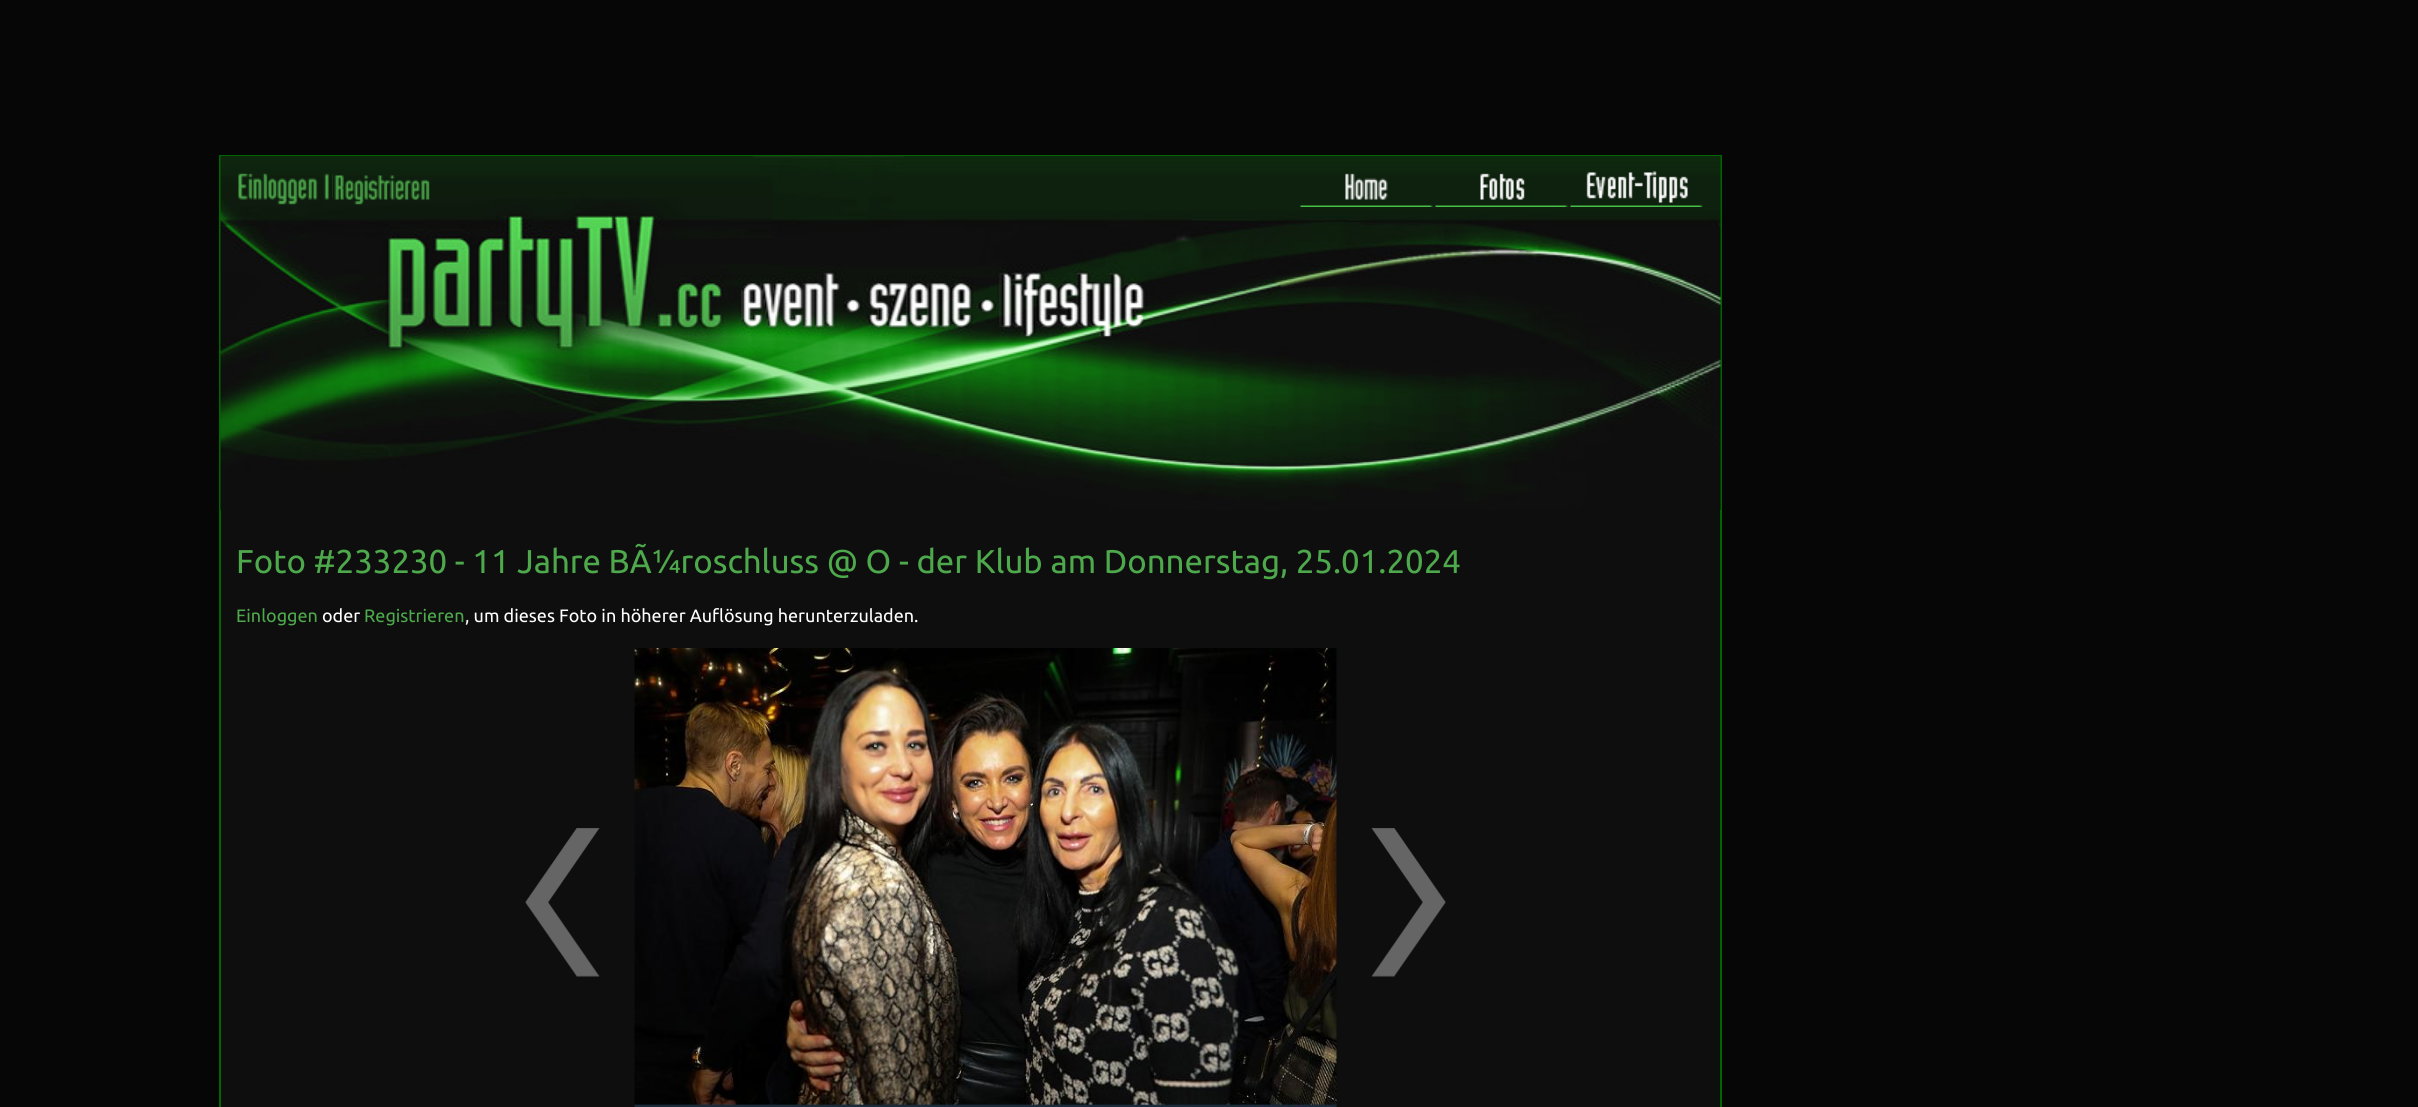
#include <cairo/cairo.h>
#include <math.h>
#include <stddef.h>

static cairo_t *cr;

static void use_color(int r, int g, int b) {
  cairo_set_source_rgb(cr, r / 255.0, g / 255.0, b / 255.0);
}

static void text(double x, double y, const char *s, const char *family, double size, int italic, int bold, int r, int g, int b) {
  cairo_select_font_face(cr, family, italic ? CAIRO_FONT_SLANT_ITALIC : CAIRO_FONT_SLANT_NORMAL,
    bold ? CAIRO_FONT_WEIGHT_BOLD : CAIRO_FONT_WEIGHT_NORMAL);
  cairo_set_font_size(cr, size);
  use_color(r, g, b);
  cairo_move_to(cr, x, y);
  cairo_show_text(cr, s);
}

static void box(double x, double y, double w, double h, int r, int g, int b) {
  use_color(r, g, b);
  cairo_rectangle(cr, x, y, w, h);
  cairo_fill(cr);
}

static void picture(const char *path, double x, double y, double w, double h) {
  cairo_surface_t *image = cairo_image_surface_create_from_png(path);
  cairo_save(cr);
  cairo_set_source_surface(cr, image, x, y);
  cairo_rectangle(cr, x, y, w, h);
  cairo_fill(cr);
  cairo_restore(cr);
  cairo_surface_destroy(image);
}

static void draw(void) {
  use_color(6, 6, 6);
  cairo_paint(cr);
  box(221, 510, 1499, 597, 14, 14, 14);
  cairo_rectangle(cr, 220, 156, 1501, 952);
  use_color(0, 102, 0);
  cairo_stroke(cr);
  picture("img_01.png", 220, 156, 1501, 354);
  picture("img_02.png", 238, 173, 95, 32);
  picture("img_03.png", 334, 175, 96, 30);
  picture("img_04.png", 1300, 173, 133, 34);
  picture("img_05.png", 1435, 173, 133, 34);
  picture("img_06.png", 1570, 171, 133, 36);
  picture("img_07.png", 525, 828, 75, 149);
  picture("img_08.png", 634, 648, 703, 459);
  picture("img_09.png", 1371, 828, 75, 149);
  text(236, 573, "Foto #233230 - 11 Jahre BÃ¼roschluss @ O - der Klub am Donnerstag, 25.01.2024", "Ubuntu", 33, 0, 0, 77, 169, 75);
  text(236, 622, "Einloggen", "Ubuntu", 18, 0, 0, 77, 169, 75);
  text(322, 622, "oder", "Ubuntu", 18, 0, 0, 255, 255, 255);
  text(364, 622, "Registrieren", "Ubuntu", 18, 0, 0, 77, 169, 75);
  text(465, 622, ", um dieses Foto in höherer Auflösung herunterzuladen.", "Ubuntu", 18, 0, 0, 255, 255, 255);
}

int main(void) {
  cairo_surface_t *surface = cairo_image_surface_create(CAIRO_FORMAT_RGB24, 2418, 1107);
  cr = cairo_create(surface);
  cairo_font_options_t *options = cairo_font_options_create();
  cairo_font_options_set_hint_metrics(options, CAIRO_HINT_METRICS_OFF);
  cairo_font_options_set_hint_style(options, CAIRO_HINT_STYLE_NONE);
  cairo_set_font_options(cr, options);
  cairo_set_miter_limit(cr, 4);
  draw();
  cairo_surface_write_to_png(surface, "out.png");
  cairo_font_options_destroy(options);
  cairo_destroy(cr);
  cairo_surface_destroy(surface);
  return 0;
}
